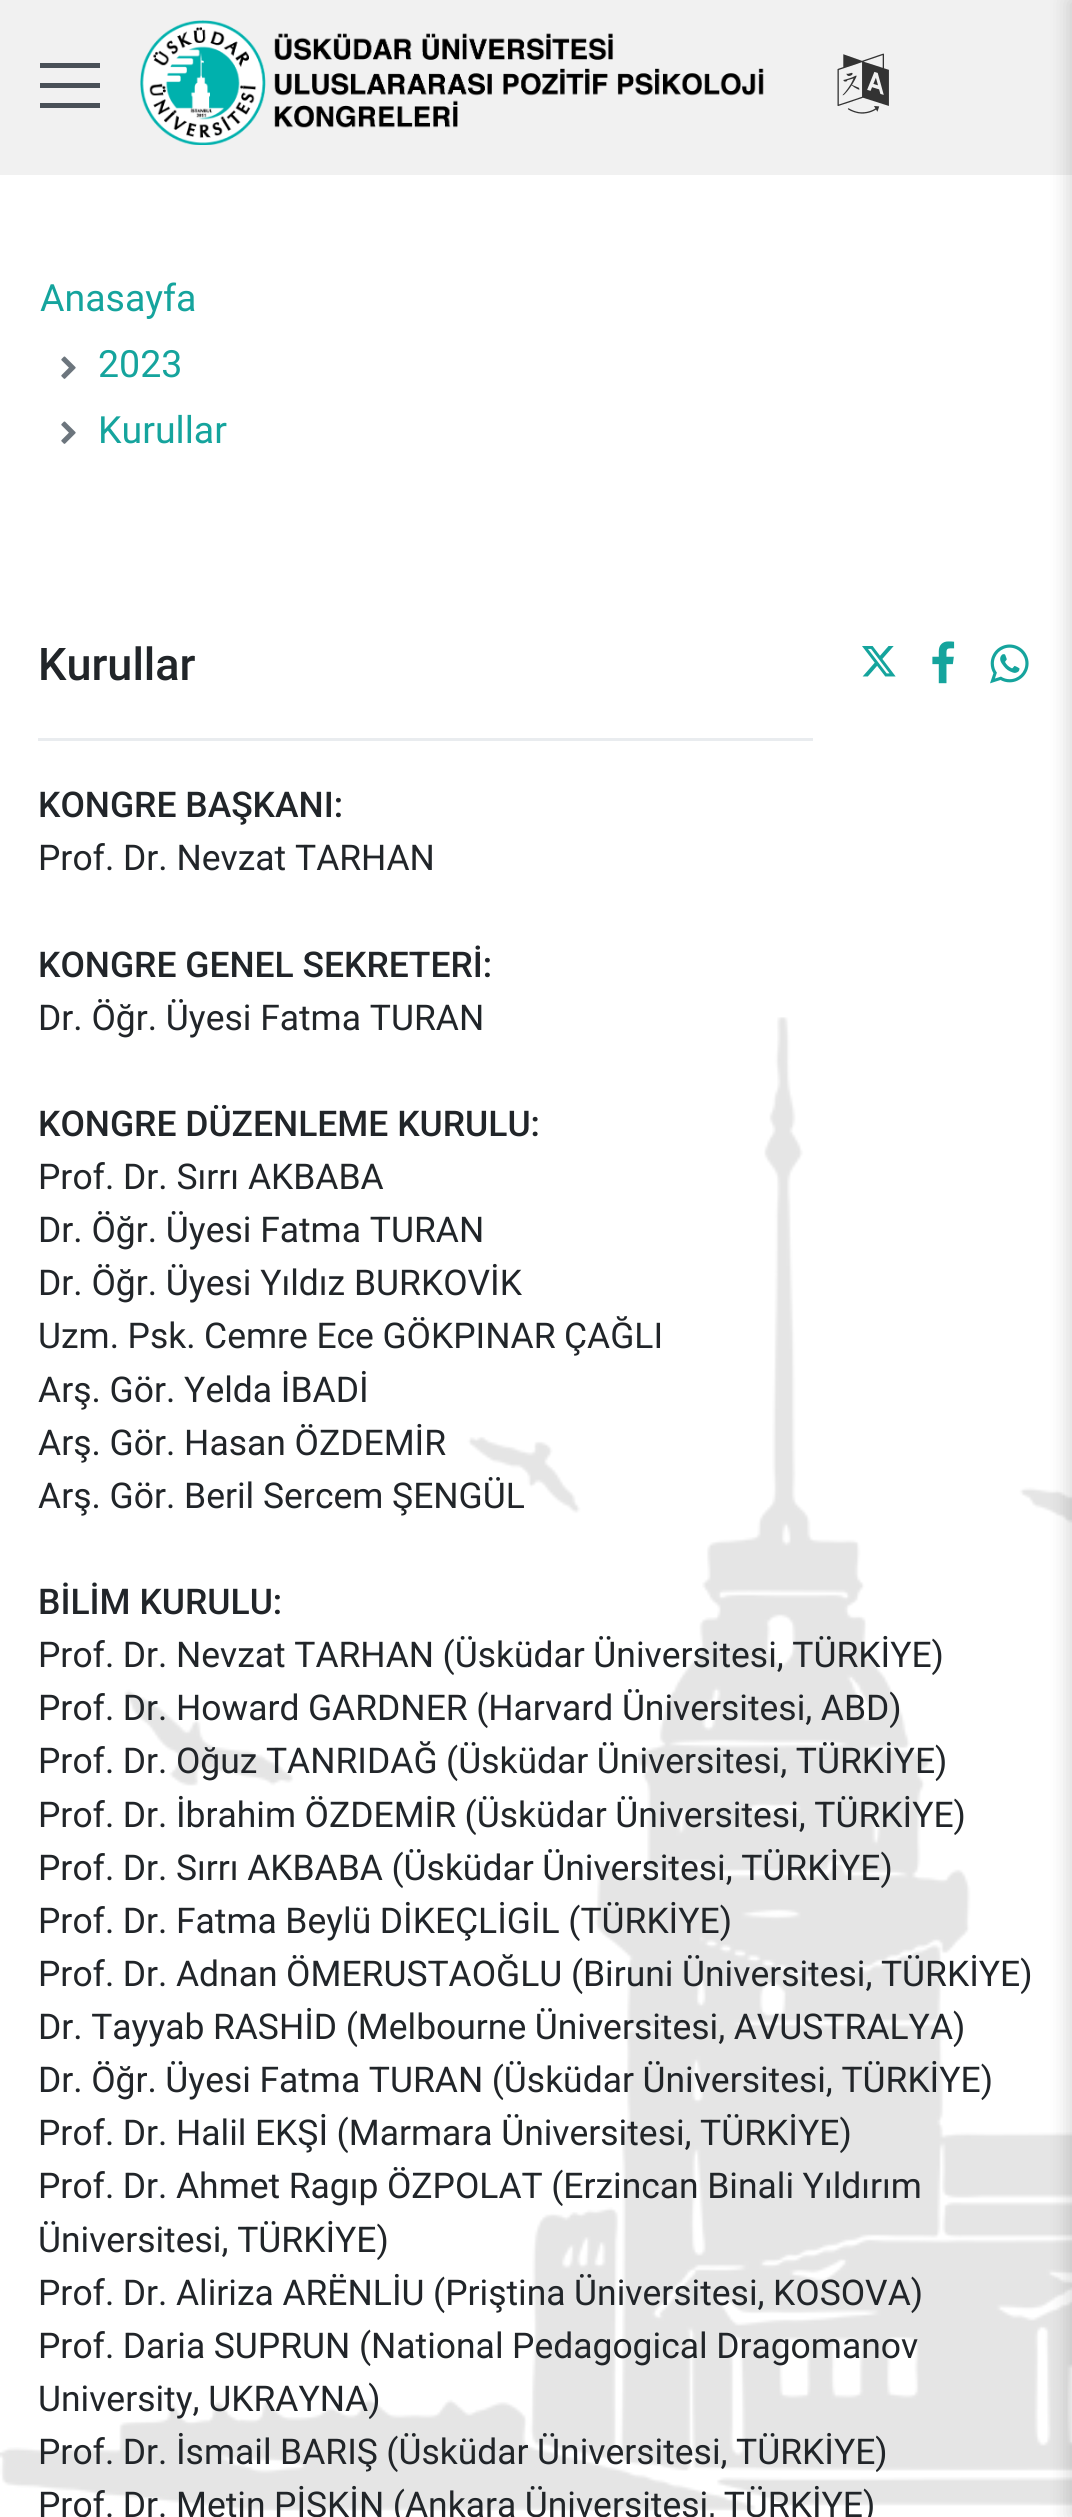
#include <cairo/cairo.h>
#include <math.h>
#include <stddef.h>

static cairo_t *cr;

static void use_color(int r, int g, int b) {
  cairo_set_source_rgb(cr, r / 255.0, g / 255.0, b / 255.0);
}

static void text(double x, double y, const char *s, const char *family, double size, int italic, int bold, int r, int g, int b) {
  cairo_select_font_face(cr, family, italic ? CAIRO_FONT_SLANT_ITALIC : CAIRO_FONT_SLANT_NORMAL,
    bold ? CAIRO_FONT_WEIGHT_BOLD : CAIRO_FONT_WEIGHT_NORMAL);
  cairo_set_font_size(cr, size);
  use_color(r, g, b);
  cairo_move_to(cr, x, y);
  cairo_show_text(cr, s);
}

static void spaced_text(double x, double y, const char *s, double letter, double word) {
  cairo_move_to(cr, x, y);
  while (*s) {
    char ch[5] = {0};
    int n = 0;
    do ch[n++] = *s++; while ((*s & 0xC0) == 0x80);
    cairo_show_text(cr, ch);
    cairo_rel_move_to(cr, letter + word * (*ch == ' '), 0);
  }
}

static void box(double x, double y, double w, double h, int r, int g, int b) {
  use_color(r, g, b);
  cairo_rectangle(cr, x, y, w, h);
  cairo_fill(cr);
}

static void round_rect(double x, double y, double w, double h, double r) {
  cairo_new_sub_path(cr);
  cairo_arc(cr, x + w - r, y + h - r, r, 0, M_PI / 2);
  cairo_arc(cr, x + r, y + h - r, r, M_PI / 2, M_PI);
  cairo_arc(cr, x + r, y + r, r, M_PI, 1.5 * M_PI);
  cairo_arc(cr, x + w - r, y + r, r, 1.5 * M_PI, 2 * M_PI);
  cairo_close_path(cr);
}

static void shadow(double x, double y, double w, double h, double r, double blur, double alpha) {
  cairo_push_group_with_content(cr, CAIRO_CONTENT_ALPHA);
  cairo_set_operator(cr, CAIRO_OPERATOR_SOURCE);
  for (int i = 15; i >= -15 && fmin(w, h) + blur * i / 3 > 0; i -= 2) {
    double e = blur * i / 6;
    cairo_set_source_rgba(cr, 0, 0, 0, alpha * erfc((i - 1) / 8.5) / 2);
    round_rect(x - e, y - e, w + 2 * e, h + 2 * e, fmax(0, fmin(r + e + blur * .6, fmin(w, h) / 2 + e)));
    cairo_fill(cr);
  }
  cairo_pattern_t *soft = cairo_pop_group(cr);
  cairo_mask(cr, soft);
  cairo_pattern_destroy(soft);
}

static void picture(const char *path, double x, double y, double w, double h) {
  cairo_surface_t *image = cairo_image_surface_create_from_png(path);
  cairo_save(cr);
  cairo_set_source_surface(cr, image, x, y);
  cairo_rectangle(cr, x, y, w, h);
  cairo_fill(cr);
  cairo_restore(cr);
  cairo_surface_destroy(image);
}

static void draw(void) {
  use_color(255, 255, 255);
  cairo_paint(cr);
  picture("img_01.png", 0, 1017, 1072, 1494);
  box(0, 0, 1072, 175, 241, 241, 241);
  box(40, 83, 60, 5, 73, 80, 87);
  box(40, 63, 60, 5, 73, 80, 87);
  box(40, 103, 60, 5, 73, 80, 87);
  picture("img_02.png", 140, 20, 624, 125);
  picture("img_03.png", 837, 53, 52, 61);
  use_color(0, 0, 0);
  shadow(1068, 0, 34, 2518, 0, 10, 0.15);
  picture("img_04.png", 61, 356, 15, 23);
  picture("img_04.png", 61, 421, 15, 23);
  box(38, 738, 775, 3, 233, 236, 239);
  picture("img_05.png", 862, 646, 34, 31);
  picture("img_06.png", 932, 641, 23, 43);
  picture("img_07.png", 990, 644, 39, 40);
  text(40, 311, "Anasayfa", "Roboto", 37.5, 0, 0, 21, 164, 157);
  text(98, 377, "2023", "Roboto", 37.5, 0, 0, 21, 164, 157);
  text(98, 443, "Kurullar", "Roboto", 37.5, 0, 0, 21, 164, 157);
  text(38, 680, "Kurullar", "Roboto Medium", 45, 0, 0, 33, 37, 41);
  text(38, 817, "KONGRE BAŞKANI:", "Roboto Medium", 35.45, 0, 0, 33, 37, 41);
  text(38, 870, "Prof. Dr. Nevzat TARHAN", "Roboto", 35.45, 0, 0, 33, 37, 41);
  text(38, 977, "KONGRE GENEL SEKRETERİ:", "Roboto Medium", 35.45, 0, 0, 33, 37, 41);
  text(38, 1030, "Dr. Öğr. Üyesi Fatma TURAN", "Roboto", 35.45, 0, 0, 33, 37, 41);
  text(38, 1136, "KONGRE DÜZENLEME KURULU:", "Roboto Medium", 35.45, 0, 0, 33, 37, 41);
  text(38, 1189, "Prof. Dr. Sırrı AKBABA", "Roboto", 35.45, 0, 0, 33, 37, 41);
  text(38, 1242, "Dr. Öğr. Üyesi Fatma TURAN", "Roboto", 35.45, 0, 0, 33, 37, 41);
  text(38, 1295, "Dr. Öğr. Üyesi Yıldız BURKOVİK", "Roboto", 35.45, 0, 0, 33, 37, 41);
  spaced_text(38, 1348, "Uzm. Psk. Cemre Ece GÖKPINAR ÇAĞLI", 0, -0.25);
  text(38, 1402, "Arş. Gör. Yelda İBADİ", "Roboto", 35.45, 0, 0, 33, 37, 41);
  text(38, 1455, "Arş. Gör. Hasan ÖZDEMİR", "Roboto", 35.45, 0, 0, 33, 37, 41);
  text(38, 1508, "Arş. Gör. Beril Sercem ŞENGÜL", "Roboto", 35.45, 0, 0, 33, 37, 41);
  text(38, 1614, "BİLİM KURULU:", "Roboto Medium", 35.45, 0, 0, 33, 37, 41);
  cairo_select_font_face(cr, "Roboto", CAIRO_FONT_SLANT_NORMAL, CAIRO_FONT_WEIGHT_NORMAL);
  spaced_text(38, 1667, "Prof. Dr. Nevzat TARHAN (Üsküdar Üniversitesi, TÜRKİYE)", 0, -0.25);
  spaced_text(38, 1720, "Prof. Dr. Howard GARDNER (Harvard Üniversitesi, ABD)", 0, -0.25);
  spaced_text(38, 1773, "Prof. Dr. Oğuz TANRIDAĞ (Üsküdar Üniversitesi, TÜRKİYE)", 0, -0.25);
  spaced_text(38, 1827, "Prof. Dr. İbrahim ÖZDEMİR (Üsküdar Üniversitesi, TÜRKİYE)", 0, -0.25);
  spaced_text(38, 1880, "Prof. Dr. Sırrı AKBABA (Üsküdar Üniversitesi, TÜRKİYE)", 0, -0.25);
  spaced_text(38, 1933, "Prof. Dr. Fatma Beylü DİKEÇLİGİL (TÜRKİYE)", 0, -0.25);
  spaced_text(38, 1986, "Prof. Dr. Adnan ÖMERUSTAOĞLU (Biruni Üniversitesi, TÜRKİYE)", 0, -0.25);
  spaced_text(38, 2039, "Dr. Tayyab RASHİD (Melbourne Üniversitesi, AVUSTRALYA)", 0, -0.25);
  spaced_text(38, 2092, "Dr. Öğr. Üyesi Fatma TURAN (Üsküdar Üniversitesi, TÜRKİYE)", 0, -0.25);
  spaced_text(38, 2145, "Prof. Dr. Halil EKŞİ (Marmara Üniversitesi, TÜRKİYE)", 0, -0.25);
  spaced_text(38, 2198, "Prof. Dr. Ahmet Ragıp ÖZPOLAT (Erzincan Binali Yıldırım", 0, -0.25);
  text(38, 2252, "Üniversitesi, TÜRKİYE)", "Roboto", 35.45, 0, 0, 33, 37, 41);
  spaced_text(38, 2305, "Prof. Dr. Aliriza ARËNLİU (Priştina Üniversitesi, KOSOVA)", 0, -0.25);
  spaced_text(38, 2358, "Prof. Daria SUPRUN (National Pedagogical Dragomanov", 0, -0.25);
  text(38, 2411, "University, UKRAYNA)", "Roboto", 35.45, 0, 0, 33, 37, 41);
  spaced_text(38, 2464, "Prof. Dr. İsmail BARIŞ (Üsküdar Üniversitesi, TÜRKİYE)", 0, -0.25);
  spaced_text(38, 2517, "Prof. Dr. Metin PİŞKİN (Ankara Üniversitesi, TÜRKİYE)", 0, -0.25);
}

int main(void) {
  cairo_surface_t *surface = cairo_image_surface_create(CAIRO_FORMAT_RGB24, 1072, 2517);
  cr = cairo_create(surface);
  cairo_font_options_t *options = cairo_font_options_create();
  cairo_font_options_set_hint_metrics(options, CAIRO_HINT_METRICS_OFF);
  cairo_font_options_set_hint_style(options, CAIRO_HINT_STYLE_NONE);
  cairo_set_font_options(cr, options);
  cairo_set_miter_limit(cr, 4);
  draw();
  cairo_surface_write_to_png(surface, "out.png");
  cairo_font_options_destroy(options);
  cairo_destroy(cr);
  cairo_surface_destroy(surface);
  return 0;
}
